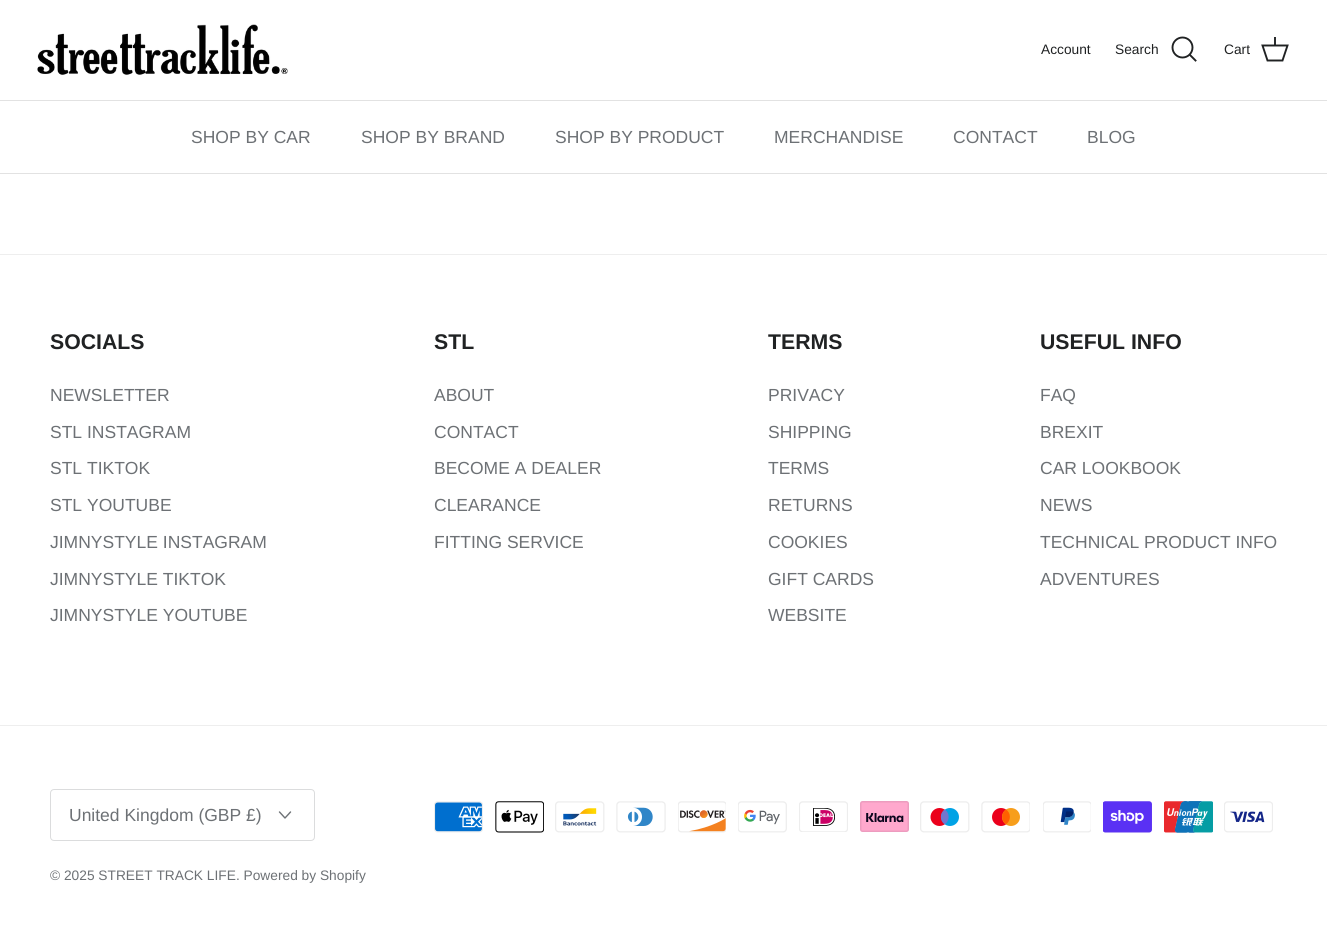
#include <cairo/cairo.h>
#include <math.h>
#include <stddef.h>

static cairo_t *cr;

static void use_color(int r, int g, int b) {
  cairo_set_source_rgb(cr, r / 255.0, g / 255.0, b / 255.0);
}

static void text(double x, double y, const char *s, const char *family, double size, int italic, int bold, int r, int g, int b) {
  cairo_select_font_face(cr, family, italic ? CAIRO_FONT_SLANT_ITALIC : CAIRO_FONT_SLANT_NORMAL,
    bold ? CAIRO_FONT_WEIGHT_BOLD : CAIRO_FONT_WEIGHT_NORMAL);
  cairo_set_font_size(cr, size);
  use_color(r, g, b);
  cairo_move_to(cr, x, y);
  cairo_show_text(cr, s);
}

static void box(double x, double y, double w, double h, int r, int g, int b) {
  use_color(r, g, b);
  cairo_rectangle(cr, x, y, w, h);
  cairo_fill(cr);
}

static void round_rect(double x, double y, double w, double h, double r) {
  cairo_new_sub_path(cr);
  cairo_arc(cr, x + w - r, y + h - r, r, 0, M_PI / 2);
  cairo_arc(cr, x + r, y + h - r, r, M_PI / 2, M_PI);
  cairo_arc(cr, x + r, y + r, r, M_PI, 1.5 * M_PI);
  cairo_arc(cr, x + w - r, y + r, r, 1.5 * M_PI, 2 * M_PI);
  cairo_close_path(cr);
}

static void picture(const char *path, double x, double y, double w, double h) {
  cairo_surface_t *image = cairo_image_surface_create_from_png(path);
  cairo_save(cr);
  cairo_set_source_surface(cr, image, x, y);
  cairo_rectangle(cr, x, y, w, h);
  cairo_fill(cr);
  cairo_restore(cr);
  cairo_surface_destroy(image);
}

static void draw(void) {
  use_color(255, 255, 255);
  cairo_paint(cr);
  box(0, 100, 1327, 1, 226, 226, 226);
  picture("img_01.png", 37, 24, 251, 51);
  cairo_arc(cr, 1182.5, 47.5, 10, 0, 2 * M_PI);
  use_color(32, 34, 35);
  cairo_set_line_width(cr, 1.9);
  cairo_stroke(cr);
  cairo_new_path(cr);
  cairo_move_to(cr, 1190, 55);
  cairo_line_to(cr, 1195.5, 60.5);
  cairo_set_line_cap(cr, CAIRO_LINE_CAP_SQUARE);
  cairo_stroke(cr);
  cairo_new_path(cr);
  cairo_move_to(cr, 1262.5, 45.5);
  cairo_line_to(cr, 1287.5, 45.5);
  cairo_line_to(cr, 1282.5, 60.5);
  cairo_line_to(cr, 1267.5, 60.5);
  cairo_close_path(cr);
  cairo_set_line_cap(cr, CAIRO_LINE_CAP_BUTT);
  cairo_stroke(cr);
  cairo_set_source_rgba(cr, 0.125, 0.133, 0.137, 0.95);
  cairo_rectangle(cr, 1274, 37, 2, 9);
  cairo_fill(cr);
  box(0, 173, 1327, 1, 226, 226, 226);
  box(0, 254, 1327, 1, 238, 238, 238);
  box(0, 725, 1327, 1, 238, 238, 238);
  round_rect(50.5, 789.5, 264, 51, 3.5);
  use_color(219, 220, 221);
  cairo_set_line_width(cr, 1);
  cairo_stroke(cr);
  cairo_new_path(cr);
  cairo_move_to(cr, 279.5, 812);
  cairo_line_to(cr, 285, 818);
  cairo_line_to(cr, 290.5, 812);
  use_color(109, 113, 117);
  cairo_set_line_width(cr, 1.4);
  cairo_set_line_cap(cr, CAIRO_LINE_CAP_ROUND);
  cairo_set_line_join(cr, CAIRO_LINE_JOIN_ROUND);
  cairo_stroke(cr);
  picture("img_02.png", 434, 801, 49, 32);
  picture("img_03.png", 495, 801, 49, 32);
  picture("img_04.png", 555, 801, 50, 32);
  picture("img_05.png", 616, 801, 50, 32);
  picture("img_06.png", 678, 801, 48, 32);
  picture("img_07.png", 738, 801, 49, 32);
  picture("img_08.png", 799, 801, 49, 31);
  picture("img_09.png", 860, 801, 49, 31);
  picture("img_10.png", 920, 801, 50, 32);
  picture("img_11.png", 981, 801, 49, 32);
  picture("img_12.png", 1043, 801, 48, 32);
  picture("img_13.png", 1103, 801, 49, 32);
  picture("img_14.png", 1164, 801, 49, 32);
  picture("img_15.png", 1224, 801, 49, 32);
  text(1041, 54, "Account", "Liberation Sans", 13.75, 0, 0, 32, 34, 35);
  text(1115, 54, "Search", "Liberation Sans", 13.75, 0, 0, 32, 34, 35);
  text(1224, 54, "Cart", "Liberation Sans", 13.75, 0, 0, 32, 34, 35);
  text(191, 143, "SHOP BY CAR", "Liberation Sans", 17.5, 0, 0, 109, 113, 117);
  text(361, 143, "SHOP BY BRAND", "Liberation Sans", 17.5, 0, 0, 109, 113, 117);
  text(555, 143, "SHOP BY PRODUCT", "Liberation Sans", 17.5, 0, 0, 109, 113, 117);
  text(774, 143, "MERCHANDISE", "Liberation Sans", 17.5, 0, 0, 109, 113, 117);
  text(953, 143, "CONTACT", "Liberation Sans", 17.5, 0, 0, 109, 113, 117);
  text(1087, 143, "BLOG", "Liberation Sans", 17.5, 0, 0, 109, 113, 117);
  text(50, 349, "SOCIALS", "Liberation Sans", 21.25, 0, 1, 32, 34, 35);
  text(50, 401, "NEWSLETTER", "Liberation Sans", 17.5, 0, 0, 109, 113, 117);
  text(50, 438, "STL INSTAGRAM", "Liberation Sans", 17.5, 0, 0, 109, 113, 117);
  text(50, 474, "STL TIKTOK", "Liberation Sans", 17.5, 0, 0, 109, 113, 117);
  text(50, 511, "STL YOUTUBE", "Liberation Sans", 17.5, 0, 0, 109, 113, 117);
  text(50, 548, "JIMNYSTYLE INSTAGRAM", "Liberation Sans", 17.5, 0, 0, 109, 113, 117);
  text(50, 585, "JIMNYSTYLE TIKTOK", "Liberation Sans", 17.5, 0, 0, 109, 113, 117);
  text(50, 621, "JIMNYSTYLE YOUTUBE", "Liberation Sans", 17.5, 0, 0, 109, 113, 117);
  text(434, 349, "STL", "Liberation Sans", 21.25, 0, 1, 32, 34, 35);
  text(434, 401, "ABOUT", "Liberation Sans", 17.5, 0, 0, 109, 113, 117);
  text(434, 438, "CONTACT", "Liberation Sans", 17.5, 0, 0, 109, 113, 117);
  text(434, 474, "BECOME A DEALER", "Liberation Sans", 17.5, 0, 0, 109, 113, 117);
  text(434, 511, "CLEARANCE", "Liberation Sans", 17.5, 0, 0, 109, 113, 117);
  text(434, 548, "FITTING SERVICE", "Liberation Sans", 17.5, 0, 0, 109, 113, 117);
  text(768, 349, "TERMS", "Liberation Sans", 21.25, 0, 1, 32, 34, 35);
  text(768, 401, "PRIVACY", "Liberation Sans", 17.5, 0, 0, 109, 113, 117);
  text(768, 438, "SHIPPING", "Liberation Sans", 17.5, 0, 0, 109, 113, 117);
  text(768, 474, "TERMS", "Liberation Sans", 17.5, 0, 0, 109, 113, 117);
  text(768, 511, "RETURNS", "Liberation Sans", 17.5, 0, 0, 109, 113, 117);
  text(768, 548, "COOKIES", "Liberation Sans", 17.5, 0, 0, 109, 113, 117);
  text(768, 585, "GIFT CARDS", "Liberation Sans", 17.5, 0, 0, 109, 113, 117);
  text(768, 621, "WEBSITE", "Liberation Sans", 17.5, 0, 0, 109, 113, 117);
  text(1040, 349, "USEFUL INFO", "Liberation Sans", 21.25, 0, 1, 32, 34, 35);
  text(1040, 401, "FAQ", "Liberation Sans", 17.5, 0, 0, 109, 113, 117);
  text(1040, 438, "BREXIT", "Liberation Sans", 17.5, 0, 0, 109, 113, 117);
  text(1040, 474, "CAR LOOKBOOK", "Liberation Sans", 17.5, 0, 0, 109, 113, 117);
  text(1040, 511, "NEWS", "Liberation Sans", 17.5, 0, 0, 109, 113, 117);
  text(1040, 548, "TECHNICAL PRODUCT INFO", "Liberation Sans", 17.5, 0, 0, 109, 113, 117);
  text(1040, 585, "ADVENTURES", "Liberation Sans", 17.5, 0, 0, 109, 113, 117);
  text(69, 821, "United Kingdom (GBP £)", "Liberation Sans", 17.5, 0, 0, 109, 113, 117);
  text(50, 880, "© 2025 STREET TRACK LIFE. Powered by Shopify", "Liberation Sans", 13.75, 0, 0, 109, 113, 117);
}

int main(void) {
  cairo_surface_t *surface = cairo_image_surface_create(CAIRO_FORMAT_RGB24, 1327, 930);
  cr = cairo_create(surface);
  cairo_font_options_t *options = cairo_font_options_create();
  cairo_font_options_set_hint_metrics(options, CAIRO_HINT_METRICS_OFF);
  cairo_font_options_set_hint_style(options, CAIRO_HINT_STYLE_NONE);
  cairo_set_font_options(cr, options);
  cairo_set_miter_limit(cr, 4);
  draw();
  cairo_surface_write_to_png(surface, "out.png");
  cairo_font_options_destroy(options);
  cairo_destroy(cr);
  cairo_surface_destroy(surface);
  return 0;
}
